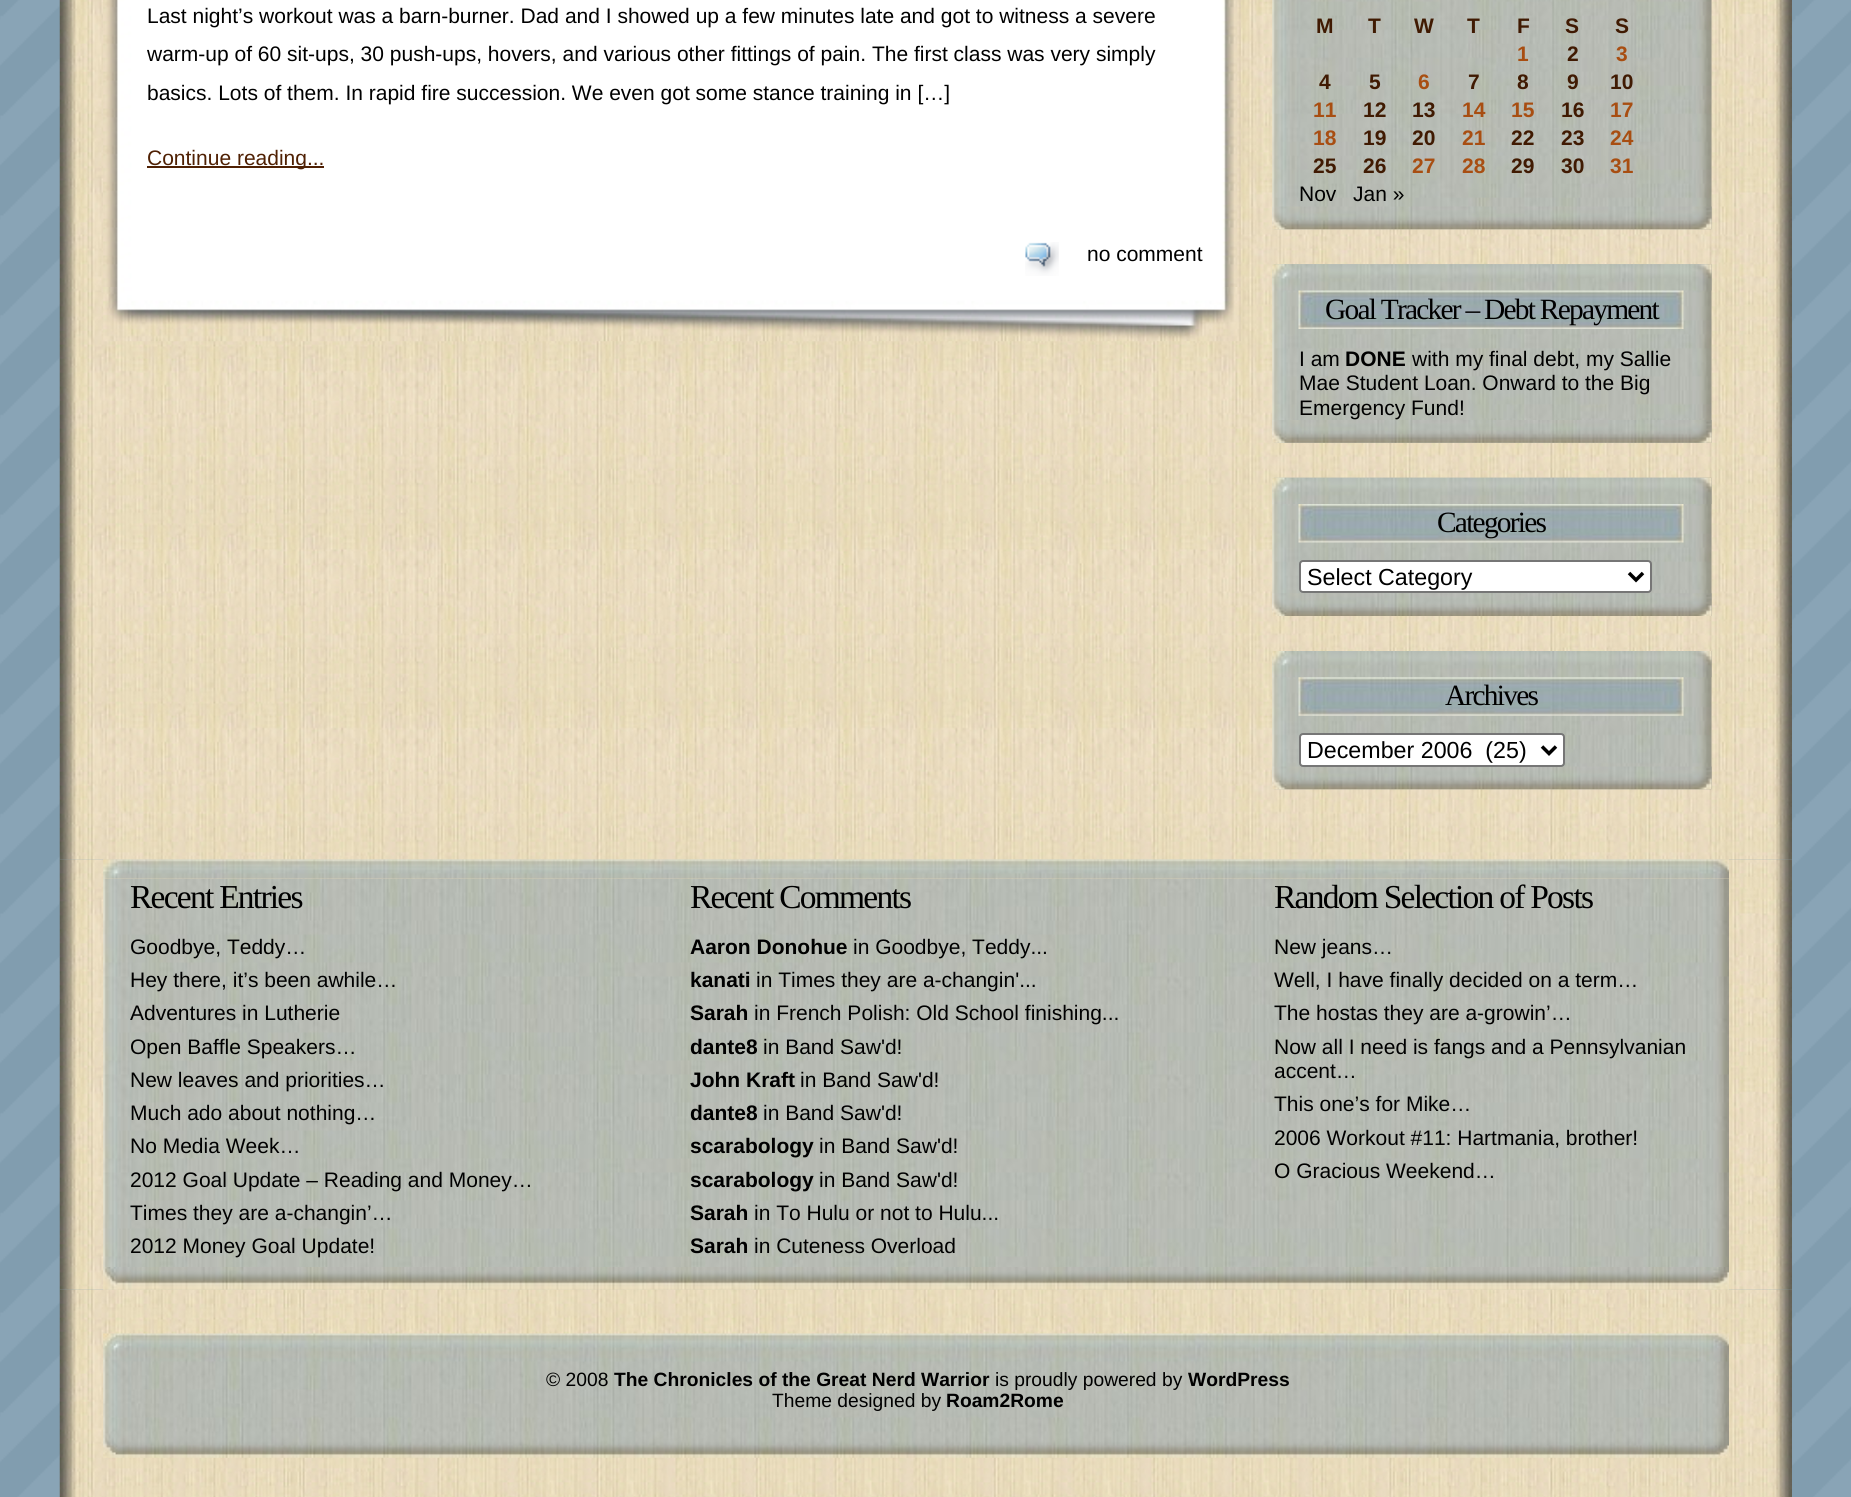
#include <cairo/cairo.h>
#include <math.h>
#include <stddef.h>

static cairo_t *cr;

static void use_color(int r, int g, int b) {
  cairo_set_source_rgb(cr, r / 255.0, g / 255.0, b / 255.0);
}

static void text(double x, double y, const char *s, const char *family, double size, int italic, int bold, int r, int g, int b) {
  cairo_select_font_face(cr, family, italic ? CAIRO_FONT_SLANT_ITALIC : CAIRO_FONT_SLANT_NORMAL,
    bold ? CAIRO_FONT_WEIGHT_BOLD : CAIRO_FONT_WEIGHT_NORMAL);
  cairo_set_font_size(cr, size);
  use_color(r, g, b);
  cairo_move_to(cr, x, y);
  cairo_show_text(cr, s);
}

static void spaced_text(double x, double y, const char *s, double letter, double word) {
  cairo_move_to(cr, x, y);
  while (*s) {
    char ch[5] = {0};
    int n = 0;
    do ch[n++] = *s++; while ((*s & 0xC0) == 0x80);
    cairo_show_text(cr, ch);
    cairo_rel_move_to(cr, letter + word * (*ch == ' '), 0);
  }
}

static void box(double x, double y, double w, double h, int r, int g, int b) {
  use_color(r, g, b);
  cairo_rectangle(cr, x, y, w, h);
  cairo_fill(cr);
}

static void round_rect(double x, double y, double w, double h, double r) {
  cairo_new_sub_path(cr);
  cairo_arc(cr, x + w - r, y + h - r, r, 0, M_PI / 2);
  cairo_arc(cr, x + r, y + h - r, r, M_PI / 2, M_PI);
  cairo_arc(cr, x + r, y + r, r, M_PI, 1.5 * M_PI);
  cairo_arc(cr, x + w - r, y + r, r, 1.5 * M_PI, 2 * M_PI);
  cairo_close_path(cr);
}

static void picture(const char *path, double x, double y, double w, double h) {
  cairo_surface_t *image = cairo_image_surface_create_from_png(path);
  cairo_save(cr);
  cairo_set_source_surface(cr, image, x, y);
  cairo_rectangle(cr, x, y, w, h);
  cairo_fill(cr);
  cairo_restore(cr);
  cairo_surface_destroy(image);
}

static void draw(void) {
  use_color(255, 255, 255);
  cairo_paint(cr);
  picture("img_01.png", 0, 0, 1851, 1497);
  picture("img_20.png", 59, 859, 1733, 431);
  picture("img_22.png", 103, 878, 1626, 389);
  picture("img_21.png", 103, 859, 1626, 20);
  picture("img_02.png", 59, 0, 1733, 860);
  picture("img_03.png", 103, 0, 1138, 287);
  box(147, 166, 177, 2, 79, 32, 3);
  picture("img_04.png", 1025, 242, 34, 34);
  picture("img_05.png", 103, 287, 1138, 55);
  picture("img_06.png", 1272, 0, 440, 230);
  picture("img_07.png", 1272, 206, 440, 24);
  picture("img_08.png", 1272, 264, 440, 179);
  picture("img_09.png", 1272, 264, 440, 27);
  picture("img_10.png", 1298, 290, 386, 39);
  picture("img_11.png", 1272, 420, 440, 23);
  picture("img_12.png", 1272, 477, 440, 139);
  picture("img_13.png", 1272, 477, 440, 27);
  picture("img_14.png", 1298, 504, 386, 39);
  use_color(255, 255, 255);
  round_rect(1300, 561, 351, 31, 3);
  cairo_fill_preserve(cr);
  use_color(118, 118, 118);
  cairo_stroke(cr);
  cairo_new_path(cr);
  cairo_move_to(cr, 1629, 573);
  cairo_line_to(cr, 1636, 580);
  cairo_line_to(cr, 1643, 573);
  use_color(0, 0, 0);
  cairo_set_line_width(cr, 3.5);
  cairo_stroke(cr);
  picture("img_15.png", 1272, 593, 440, 23);
  picture("img_16.png", 1272, 651, 440, 139);
  picture("img_17.png", 1272, 651, 440, 27);
  picture("img_18.png", 1298, 677, 386, 39);
  picture("img_19.png", 1272, 766, 440, 24);
  use_color(255, 255, 255);
  round_rect(1300, 734, 264, 32, 3);
  cairo_fill_preserve(cr);
  use_color(118, 118, 118);
  cairo_set_line_width(cr, 2);
  cairo_stroke(cr);
  cairo_new_path(cr);
  cairo_move_to(cr, 1542, 746.5);
  cairo_line_to(cr, 1549, 753.5);
  cairo_line_to(cr, 1556, 746.5);
  use_color(0, 0, 0);
  cairo_set_line_width(cr, 3.5);
  cairo_stroke(cr);
  picture("img_23.png", 103, 1267, 1626, 23);
  picture("img_24.png", 59, 1289, 1733, 208);
  picture("img_25.png", 103, 1333, 1626, 125);
  text(147, 23, "Last night’s workout was a barn-burner. Dad and I showed up a few minutes late and got to witness a severe", "Liberation Sans", 21, 0, 0, 0, 0, 0);
  text(147, 61, "warm-up of 60 sit-ups, 30 push-ups, hovers, and various other fittings of pain. The first class was very simply", "Liberation Sans", 21, 0, 0, 0, 0, 0);
  text(147, 100, "basics. Lots of them. In rapid fire succession. We even got some stance training in […]", "Liberation Sans", 21, 0, 0, 0, 0, 0);
  text(147, 165, "Continue reading...", "Liberation Sans", 21, 0, 0, 79, 32, 3);
  text(1087, 261, "no comment", "Liberation Sans", 21, 0, 0, 0, 0, 0);
  text(1316, 33, "M", "Liberation Sans", 21, 0, 1, 64, 26, 2);
  text(1368, 33, "T", "Liberation Sans", 21, 0, 1, 64, 26, 2);
  text(1414, 33, "W", "Liberation Sans", 21, 0, 1, 64, 26, 2);
  text(1467, 33, "T", "Liberation Sans", 21, 0, 1, 64, 26, 2);
  text(1517, 33, "F", "Liberation Sans", 21, 0, 1, 64, 26, 2);
  text(1565, 33, "S", "Liberation Sans", 21, 0, 1, 64, 26, 2);
  text(1615, 33, "S", "Liberation Sans", 21, 0, 1, 64, 26, 2);
  text(1517, 61, "1", "Liberation Sans", 21, 0, 1, 168, 78, 18);
  text(1567, 61, "2", "Liberation Sans", 21, 0, 1, 64, 26, 2);
  text(1616, 61, "3", "Liberation Sans", 21, 0, 1, 168, 78, 18);
  text(1319, 89, "4", "Liberation Sans", 21, 0, 1, 64, 26, 2);
  text(1369, 89, "5", "Liberation Sans", 21, 0, 1, 64, 26, 2);
  text(1418, 89, "6", "Liberation Sans", 21, 0, 1, 168, 78, 18);
  text(1468, 89, "7", "Liberation Sans", 21, 0, 1, 64, 26, 2);
  text(1517, 89, "8", "Liberation Sans", 21, 0, 1, 64, 26, 2);
  text(1567, 89, "9", "Liberation Sans", 21, 0, 1, 64, 26, 2);
  text(1610, 89, "10", "Liberation Sans", 21, 0, 1, 64, 26, 2);
  text(1313, 117, "11", "Liberation Sans", 21, 0, 1, 168, 78, 18);
  text(1363, 117, "12", "Liberation Sans", 21, 0, 1, 64, 26, 2);
  text(1412, 117, "13", "Liberation Sans", 21, 0, 1, 64, 26, 2);
  text(1462, 117, "14", "Liberation Sans", 21, 0, 1, 168, 78, 18);
  text(1511, 117, "15", "Liberation Sans", 21, 0, 1, 168, 78, 18);
  text(1561, 117, "16", "Liberation Sans", 21, 0, 1, 64, 26, 2);
  text(1610, 117, "17", "Liberation Sans", 21, 0, 1, 168, 78, 18);
  text(1313, 145, "18", "Liberation Sans", 21, 0, 1, 168, 78, 18);
  text(1363, 145, "19", "Liberation Sans", 21, 0, 1, 64, 26, 2);
  text(1412, 145, "20", "Liberation Sans", 21, 0, 1, 64, 26, 2);
  text(1462, 145, "21", "Liberation Sans", 21, 0, 1, 168, 78, 18);
  text(1511, 145, "22", "Liberation Sans", 21, 0, 1, 64, 26, 2);
  text(1561, 145, "23", "Liberation Sans", 21, 0, 1, 64, 26, 2);
  text(1610, 145, "24", "Liberation Sans", 21, 0, 1, 168, 78, 18);
  text(1313, 173, "25", "Liberation Sans", 21, 0, 1, 64, 26, 2);
  text(1363, 173, "26", "Liberation Sans", 21, 0, 1, 64, 26, 2);
  text(1412, 173, "27", "Liberation Sans", 21, 0, 1, 168, 78, 18);
  text(1462, 173, "28", "Liberation Sans", 21, 0, 1, 168, 78, 18);
  text(1511, 173, "29", "Liberation Sans", 21, 0, 1, 64, 26, 2);
  text(1561, 173, "30", "Liberation Sans", 21, 0, 1, 64, 26, 2);
  text(1610, 173, "31", "Liberation Sans", 21, 0, 1, 168, 78, 18);
  text(1299, 201, "Nov", "Liberation Sans", 21, 0, 0, 0, 0, 0);
  text(1353, 201, "Jan »", "Liberation Sans", 21, 0, 0, 0, 0, 0);
  cairo_select_font_face(cr, "Liberation Serif", CAIRO_FONT_SLANT_NORMAL, CAIRO_FONT_WEIGHT_NORMAL);
  cairo_set_font_size(cr, 29.4);
  spaced_text(1325, 319, "Goal Tracker – Debt Repayment", -1.75, 0);
  text(1299, 366, "I am", "Liberation Sans", 21, 0, 0, 0, 0, 0);
  text(1345, 366, "DONE", "Liberation Sans", 21, 0, 1, 0, 0, 0);
  text(1412, 366, "with my final debt, my Sallie", "Liberation Sans", 21, 0, 0, 0, 0, 0);
  text(1299, 390, "Mae Student Loan. Onward to the Big", "Liberation Sans", 21, 0, 0, 0, 0, 0);
  text(1299, 415, "Emergency Fund!", "Liberation Sans", 21, 0, 0, 0, 0, 0);
  cairo_select_font_face(cr, "Liberation Serif", CAIRO_FONT_SLANT_NORMAL, CAIRO_FONT_WEIGHT_NORMAL);
  cairo_set_font_size(cr, 29.4);
  spaced_text(1437, 532, "Categories", -1.75, 0);
  text(1307, 585, "Select Category", "Liberation Sans", 23.25, 0, 0, 0, 0, 0);
  cairo_select_font_face(cr, "Liberation Serif", CAIRO_FONT_SLANT_NORMAL, CAIRO_FONT_WEIGHT_NORMAL);
  cairo_set_font_size(cr, 29.4);
  spaced_text(1445, 705, "Archives", -1.75, 0);
  text(1307, 758, "December 2006  (25)", "Liberation Sans", 23.25, 0, 0, 0, 0, 0);
  cairo_select_font_face(cr, "Liberation Serif", CAIRO_FONT_SLANT_NORMAL, CAIRO_FONT_WEIGHT_NORMAL);
  cairo_set_font_size(cr, 33.5);
  spaced_text(130, 908, "Recent Entries", -1.75, 0);
  text(130, 954, "Goodbye, Teddy…", "Liberation Sans", 21, 0, 0, 0, 0, 0);
  text(130, 987, "Hey there, it’s been awhile…", "Liberation Sans", 21, 0, 0, 0, 0, 0);
  text(130, 1020, "Adventures in Lutherie", "Liberation Sans", 21, 0, 0, 0, 0, 0);
  text(130, 1054, "Open Baffle Speakers…", "Liberation Sans", 21, 0, 0, 0, 0, 0);
  text(130, 1087, "New leaves and priorities…", "Liberation Sans", 21, 0, 0, 0, 0, 0);
  text(130, 1120, "Much ado about nothing…", "Liberation Sans", 21, 0, 0, 0, 0, 0);
  text(130, 1153, "No Media Week…", "Liberation Sans", 21, 0, 0, 0, 0, 0);
  text(130, 1187, "2012 Goal Update – Reading and Money…", "Liberation Sans", 21, 0, 0, 0, 0, 0);
  text(130, 1220, "Times they are a-changin’…", "Liberation Sans", 21, 0, 0, 0, 0, 0);
  text(130, 1253, "2012 Money Goal Update!", "Liberation Sans", 21, 0, 0, 0, 0, 0);
  cairo_select_font_face(cr, "Liberation Serif", CAIRO_FONT_SLANT_NORMAL, CAIRO_FONT_WEIGHT_NORMAL);
  cairo_set_font_size(cr, 33.5);
  spaced_text(690, 908, "Recent Comments", -1.75, 0);
  text(690, 954, "Aaron Donohue", "Liberation Sans", 21, 0, 1, 0, 0, 0);
  text(853, 954, "in Goodbye, Teddy...", "Liberation Sans", 21, 0, 0, 0, 0, 0);
  text(690, 987, "kanati", "Liberation Sans", 21, 0, 1, 0, 0, 0);
  text(756, 987, "in Times they are a-changin'...", "Liberation Sans", 21, 0, 0, 0, 0, 0);
  text(690, 1020, "Sarah", "Liberation Sans", 21, 0, 1, 0, 0, 0);
  text(754, 1020, "in French Polish: Old School finishing...", "Liberation Sans", 21, 0, 0, 0, 0, 0);
  text(690, 1054, "dante8", "Liberation Sans", 21, 0, 1, 0, 0, 0);
  text(763, 1054, "in Band Saw'd!", "Liberation Sans", 21, 0, 0, 0, 0, 0);
  text(690, 1087, "John Kraft", "Liberation Sans", 21, 0, 1, 0, 0, 0);
  text(800, 1087, "in Band Saw'd!", "Liberation Sans", 21, 0, 0, 0, 0, 0);
  text(690, 1120, "dante8", "Liberation Sans", 21, 0, 1, 0, 0, 0);
  text(763, 1120, "in Band Saw'd!", "Liberation Sans", 21, 0, 0, 0, 0, 0);
  text(690, 1153, "scarabology", "Liberation Sans", 21, 0, 1, 0, 0, 0);
  text(819, 1153, "in Band Saw'd!", "Liberation Sans", 21, 0, 0, 0, 0, 0);
  text(690, 1187, "scarabology", "Liberation Sans", 21, 0, 1, 0, 0, 0);
  text(819, 1187, "in Band Saw'd!", "Liberation Sans", 21, 0, 0, 0, 0, 0);
  text(690, 1220, "Sarah", "Liberation Sans", 21, 0, 1, 0, 0, 0);
  text(754, 1220, "in To Hulu or not to Hulu...", "Liberation Sans", 21, 0, 0, 0, 0, 0);
  text(690, 1253, "Sarah", "Liberation Sans", 21, 0, 1, 0, 0, 0);
  text(754, 1253, "in Cuteness Overload", "Liberation Sans", 21, 0, 0, 0, 0, 0);
  cairo_select_font_face(cr, "Liberation Serif", CAIRO_FONT_SLANT_NORMAL, CAIRO_FONT_WEIGHT_NORMAL);
  cairo_set_font_size(cr, 33.5);
  spaced_text(1274, 908, "Random Selection of Posts", -1.75, 0);
  text(1274, 954, "New jeans…", "Liberation Sans", 21, 0, 0, 0, 0, 0);
  text(1274, 987, "Well, I have finally decided on a term…", "Liberation Sans", 21, 0, 0, 0, 0, 0);
  text(1274, 1020, "The hostas they are a-growin’…", "Liberation Sans", 21, 0, 0, 0, 0, 0);
  text(1274, 1054, "Now all I need is fangs and a Pennsylvanian", "Liberation Sans", 21, 0, 0, 0, 0, 0);
  text(1274, 1078, "accent…", "Liberation Sans", 21, 0, 0, 0, 0, 0);
  text(1274, 1111, "This one’s for Mike…", "Liberation Sans", 21, 0, 0, 0, 0, 0);
  text(1274, 1145, "2006 Workout #11: Hartmania, brother!", "Liberation Sans", 21, 0, 0, 0, 0, 0);
  text(1274, 1178, "O Gracious Weekend…", "Liberation Sans", 21, 0, 0, 0, 0, 0);
  text(546, 1386, "© 2008", "Liberation Sans", 19.25, 0, 0, 0, 0, 0);
  text(614, 1386, "The Chronicles of the Great Nerd Warrior", "Liberation Sans", 19.25, 0, 1, 0, 0, 0);
  text(995, 1386, "is proudly powered by", "Liberation Sans", 19.25, 0, 0, 0, 0, 0);
  text(1188, 1386, "WordPress", "Liberation Sans", 19.25, 0, 1, 0, 0, 0);
  text(772, 1407, "Theme designed by", "Liberation Sans", 19.25, 0, 0, 0, 0, 0);
  text(946, 1407, "Roam2Rome", "Liberation Sans", 19.25, 0, 1, 0, 0, 0);
}

int main(void) {
  cairo_surface_t *surface = cairo_image_surface_create(CAIRO_FORMAT_RGB24, 1851, 1497);
  cr = cairo_create(surface);
  cairo_font_options_t *options = cairo_font_options_create();
  cairo_font_options_set_hint_metrics(options, CAIRO_HINT_METRICS_OFF);
  cairo_font_options_set_hint_style(options, CAIRO_HINT_STYLE_NONE);
  cairo_set_font_options(cr, options);
  cairo_set_miter_limit(cr, 4);
  draw();
  cairo_surface_write_to_png(surface, "out.png");
  cairo_font_options_destroy(options);
  cairo_destroy(cr);
  cairo_surface_destroy(surface);
  return 0;
}
